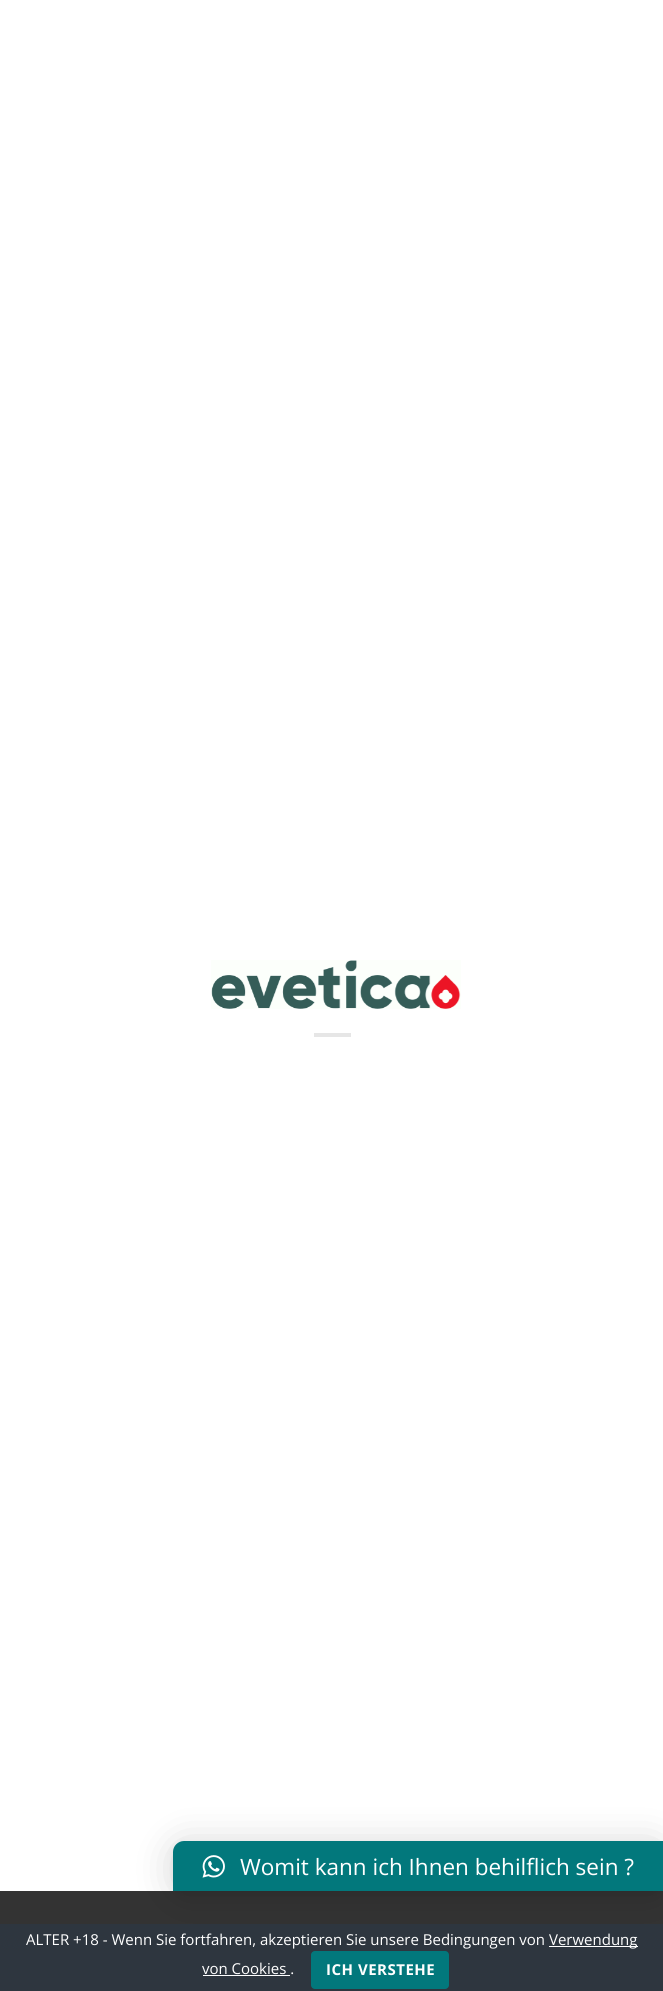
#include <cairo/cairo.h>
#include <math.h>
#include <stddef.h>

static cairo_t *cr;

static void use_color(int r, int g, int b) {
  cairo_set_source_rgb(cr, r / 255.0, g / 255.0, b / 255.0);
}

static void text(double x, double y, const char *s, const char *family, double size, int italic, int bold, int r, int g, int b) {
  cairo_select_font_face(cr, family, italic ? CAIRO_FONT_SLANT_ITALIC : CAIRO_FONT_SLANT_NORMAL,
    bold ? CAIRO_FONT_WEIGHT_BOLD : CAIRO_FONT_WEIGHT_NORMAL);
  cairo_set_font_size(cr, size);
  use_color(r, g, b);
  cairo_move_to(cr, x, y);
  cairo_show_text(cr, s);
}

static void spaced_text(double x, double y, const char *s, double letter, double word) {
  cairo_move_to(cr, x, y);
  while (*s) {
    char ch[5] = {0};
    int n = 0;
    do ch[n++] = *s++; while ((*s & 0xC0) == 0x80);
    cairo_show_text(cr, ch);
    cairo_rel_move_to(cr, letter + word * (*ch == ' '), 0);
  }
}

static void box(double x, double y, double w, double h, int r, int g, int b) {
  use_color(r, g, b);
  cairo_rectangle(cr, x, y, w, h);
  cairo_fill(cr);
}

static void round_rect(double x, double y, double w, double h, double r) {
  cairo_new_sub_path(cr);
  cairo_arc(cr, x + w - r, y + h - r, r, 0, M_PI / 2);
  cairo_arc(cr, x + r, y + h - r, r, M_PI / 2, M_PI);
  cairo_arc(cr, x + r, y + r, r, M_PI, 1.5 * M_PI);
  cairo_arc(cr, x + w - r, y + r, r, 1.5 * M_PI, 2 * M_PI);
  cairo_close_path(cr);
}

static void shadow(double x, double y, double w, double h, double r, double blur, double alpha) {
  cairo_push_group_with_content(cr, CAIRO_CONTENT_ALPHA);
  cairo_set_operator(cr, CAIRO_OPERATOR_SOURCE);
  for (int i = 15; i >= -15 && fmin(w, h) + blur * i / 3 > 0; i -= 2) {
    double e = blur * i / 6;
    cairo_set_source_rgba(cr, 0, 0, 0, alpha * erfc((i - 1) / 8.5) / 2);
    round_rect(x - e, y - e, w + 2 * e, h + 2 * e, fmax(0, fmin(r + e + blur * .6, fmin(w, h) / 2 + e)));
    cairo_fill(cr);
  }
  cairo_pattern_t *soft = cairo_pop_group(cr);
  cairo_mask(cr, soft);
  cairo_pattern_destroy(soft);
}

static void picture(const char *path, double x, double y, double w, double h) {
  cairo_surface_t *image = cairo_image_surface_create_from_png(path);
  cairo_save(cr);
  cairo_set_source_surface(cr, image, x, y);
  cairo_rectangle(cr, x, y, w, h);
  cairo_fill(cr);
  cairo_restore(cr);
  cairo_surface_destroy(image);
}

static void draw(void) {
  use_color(255, 255, 255);
  cairo_paint(cr);
  picture("img_01.png", 211, 960, 250, 49);
  box(314, 1033, 37, 4, 230, 230, 230);
  box(0, 1891, 663, 33, 51, 51, 51);
  box(0, 1924, 663, 67, 46, 54, 63);
  box(549, 1946, 89, 1, 255, 255, 255);
  use_color(2, 120, 124);
  round_rect(311, 1951, 138, 38, 4);
  cairo_fill(cr);
  use_color(0, 0, 0);
  shadow(173, 1844, 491, 50, 11, 20, 0.16);
  shadow(173, 1843, 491, 50, 11, 4, 0.06);
  use_color(2, 120, 124);
  cairo_new_path(cr);
  cairo_move_to(cr, 184, 1841);
  cairo_line_to(cr, 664, 1841);
  cairo_line_to(cr, 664, 1891);
  cairo_line_to(cr, 173, 1891);
  cairo_line_to(cr, 173, 1852);
  cairo_curve_to(cr, 173, 1846, 178, 1841, 184, 1841);
  cairo_close_path(cr);
  cairo_fill(cr);
  picture("img_02.png", 202, 1855, 23, 23);
  box(203, 1975, 87, 1, 255, 255, 255);
  text(240, 1875, "Womit kann ich Ihnen behilflich sein ?", "Open Sans", 22.5, 0, 0, 255, 255, 255);
  text(26, 1945, "ALTER +18 - Wenn Sie fortfahren, akzeptieren Sie unsere Bedingungen von", "Open Sans", 15, 0, 0, 255, 255, 255);
  text(549, 1945, "Verwendung", "Open Sans", 15, 0, 0, 255, 255, 255);
  text(202, 1974, "von Cookies .", "Open Sans", 15, 0, 0, 255, 255, 255);
  cairo_select_font_face(cr, "Open Sans", CAIRO_FONT_SLANT_NORMAL, CAIRO_FONT_WEIGHT_BOLD);
  spaced_text(326, 1975, "ICH VERSTEHE", 0.5, 0);
}

int main(void) {
  cairo_surface_t *surface = cairo_image_surface_create(CAIRO_FORMAT_RGB24, 663, 1991);
  cr = cairo_create(surface);
  cairo_font_options_t *options = cairo_font_options_create();
  cairo_font_options_set_hint_metrics(options, CAIRO_HINT_METRICS_OFF);
  cairo_font_options_set_hint_style(options, CAIRO_HINT_STYLE_NONE);
  cairo_set_font_options(cr, options);
  cairo_set_miter_limit(cr, 4);
  draw();
  cairo_surface_write_to_png(surface, "out.png");
  cairo_font_options_destroy(options);
  cairo_destroy(cr);
  cairo_surface_destroy(surface);
  return 0;
}
